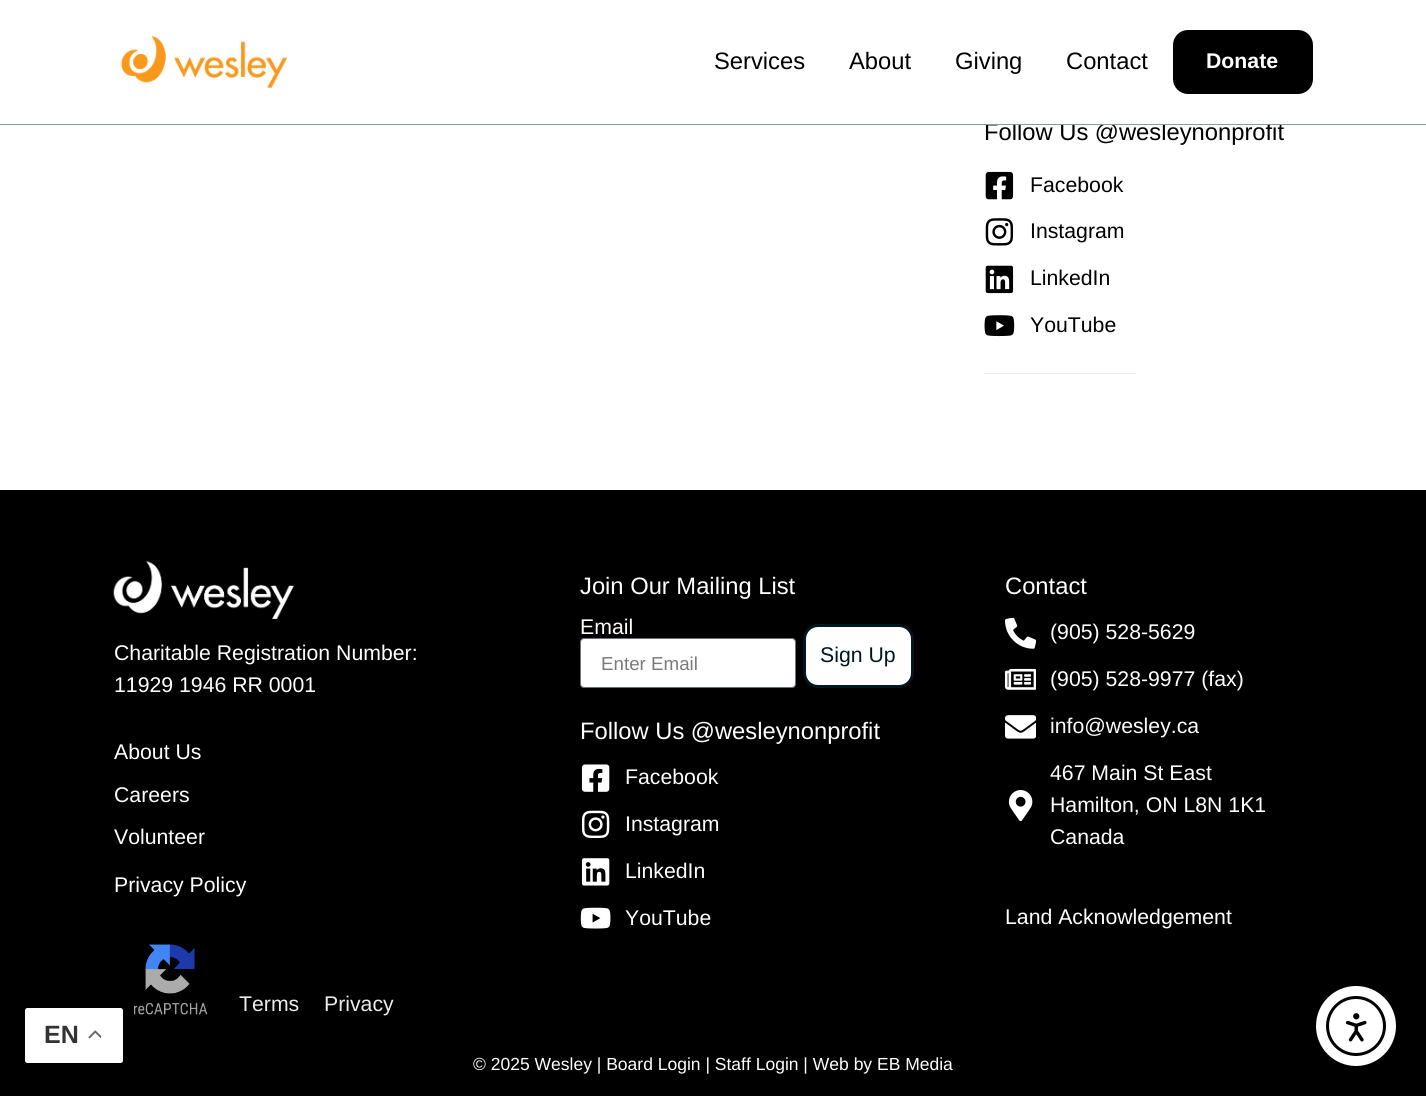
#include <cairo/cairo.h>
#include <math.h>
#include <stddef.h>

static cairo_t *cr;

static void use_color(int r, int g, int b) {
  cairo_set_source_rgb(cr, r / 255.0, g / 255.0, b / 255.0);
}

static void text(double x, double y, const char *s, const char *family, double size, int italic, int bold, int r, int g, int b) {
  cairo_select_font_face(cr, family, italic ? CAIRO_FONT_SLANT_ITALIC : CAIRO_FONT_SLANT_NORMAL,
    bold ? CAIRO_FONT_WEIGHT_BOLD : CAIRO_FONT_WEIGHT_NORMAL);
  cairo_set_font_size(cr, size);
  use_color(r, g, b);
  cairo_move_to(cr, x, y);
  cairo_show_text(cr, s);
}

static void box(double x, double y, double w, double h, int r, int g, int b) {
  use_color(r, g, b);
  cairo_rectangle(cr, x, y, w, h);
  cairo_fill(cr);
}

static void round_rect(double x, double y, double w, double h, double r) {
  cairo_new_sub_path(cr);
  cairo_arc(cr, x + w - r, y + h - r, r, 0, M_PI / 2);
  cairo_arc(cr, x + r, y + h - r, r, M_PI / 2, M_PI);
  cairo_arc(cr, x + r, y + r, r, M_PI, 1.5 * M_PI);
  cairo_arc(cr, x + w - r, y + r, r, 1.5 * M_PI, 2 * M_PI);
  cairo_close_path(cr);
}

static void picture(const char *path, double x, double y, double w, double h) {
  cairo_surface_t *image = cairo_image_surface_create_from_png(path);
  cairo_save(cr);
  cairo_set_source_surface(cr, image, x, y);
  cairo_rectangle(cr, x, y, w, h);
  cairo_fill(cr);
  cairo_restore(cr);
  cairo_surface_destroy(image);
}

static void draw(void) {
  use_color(255, 255, 255);
  cairo_paint(cr);
  picture("img_01.png", 121, 36, 166, 53);
  use_color(0, 0, 0);
  round_rect(1174.5, 31.5, 137, 61, 13.5);
  cairo_fill_preserve(cr);
  cairo_set_line_width(cr, 3);
  cairo_stroke(cr);
  picture("img_02.png", 985, 171, 29, 29);
  picture("img_03.png", 985, 218, 29, 28);
  picture("img_04.png", 985, 265, 29, 29);
  picture("img_05.png", 984, 315, 31, 22);
  box(984, 373, 152, 1, 236, 236, 236);
  box(0, 490, 1426, 606, 0, 0, 0);
  use_color(255, 255, 255);
  round_rect(25, 1008, 98, 55, 2.5);
  cairo_fill(cr);
  picture("img_06.png", 88, 1030, 13, 9);
  picture("img_07.png", 113, 561, 181, 58);
  picture("img_08.png", 134, 944, 74, 71);
  round_rect(580.5, 638.5, 215, 49, 3.5);
  cairo_fill_preserve(cr);
  use_color(105, 114, 125);
  cairo_set_line_width(cr, 1);
  cairo_stroke(cr);
  use_color(255, 255, 255);
  round_rect(804.5, 625.5, 108, 61, 13.5);
  cairo_fill_preserve(cr);
  use_color(1, 22, 30);
  cairo_set_line_width(cr, 3);
  cairo_stroke(cr);
  picture("img_09.png", 581, 764, 29, 28);
  picture("img_10.png", 581, 810, 29, 29);
  picture("img_11.png", 581, 858, 29, 28);
  picture("img_12.png", 580, 907, 31, 22);
  picture("img_13.png", 1005, 618, 31, 31);
  picture("img_14.png", 1005, 668, 31, 22);
  picture("img_15.png", 1005, 715, 31, 24);
  picture("img_16.png", 1008, 790, 25, 31);
  use_color(255, 255, 255);
  cairo_arc(cr, 1356, 1026, 40, 0, 2 * M_PI);
  cairo_fill(cr);
  cairo_arc(cr, 1356, 1026, 28.5, 0, 2 * M_PI);
  use_color(0, 0, 0);
  cairo_stroke(cr);
  picture("img_17.png", 1345, 1013, 22, 29);
  text(714, 69, "Services", "Liberation Sans", 23.75, 0, 0, 0, 0, 0);
  text(849, 69, "About", "Liberation Sans", 23.75, 0, 0, 0, 0, 0);
  text(955, 69, "Giving", "Liberation Sans", 23.75, 0, 0, 0, 0, 0);
  text(1066, 69, "Contact", "Liberation Sans", 23.75, 0, 0, 0, 0, 0);
  text(1206, 68, "Donate", "Liberation Sans", 21.25, 0, 1, 255, 255, 255);
  text(984, 140, "Follow Us @wesleynonprofit", "Liberation Sans", 23.75, 0, 0, 0, 0, 0);
  box(0, 124, 1426, 1, 143, 152, 156);
  box(986, 122, 290, 2, 255, 255, 255);
  text(1030, 192, "Facebook", "Liberation Sans", 21.25, 0, 0, 0, 0, 0);
  text(1030, 238, "Instagram", "Liberation Sans", 21.25, 0, 0, 0, 0, 0);
  text(1030, 285, "LinkedIn", "Liberation Sans", 21.25, 0, 0, 0, 0, 0);
  text(1030, 332, "YouTube", "Liberation Sans", 21.25, 0, 0, 0, 0, 0);
  text(44, 1043, "EN", "Liberation Sans", 25, 0, 1, 51, 51, 51);
  text(114, 660, "Charitable Registration Number:", "Liberation Sans", 21.25, 0, 0, 255, 255, 255);
  text(114, 692, "11929 1946 RR 0001", "Liberation Sans", 21.25, 0, 0, 255, 255, 255);
  text(114, 759, "About Us", "Liberation Sans", 21.25, 0, 0, 255, 255, 255);
  text(114, 802, "Careers", "Liberation Sans", 21.25, 0, 0, 255, 255, 255);
  text(114, 844, "Volunteer", "Liberation Sans", 21.25, 0, 0, 255, 255, 255);
  text(114, 892, "Privacy Policy", "Liberation Sans", 21.25, 0, 0, 255, 255, 255);
  text(239, 1011, "Terms", "Liberation Sans", 21.25, 0, 0, 236, 236, 236);
  text(324, 1011, "Privacy", "Liberation Sans", 21.25, 0, 0, 236, 236, 236);
  text(580, 594, "Join Our Mailing List", "Liberation Sans", 23.75, 0, 0, 255, 255, 255);
  text(580, 634, "Email", "Liberation Sans", 21.25, 0, 0, 255, 255, 255);
  text(601, 670, "Enter Email", "Liberation Sans", 18.75, 0, 0, 121, 122, 124);
  text(820, 662, "Sign Up", "Liberation Sans", 21.25, 0, 0, 1, 22, 30);
  text(580, 739, "Follow Us @wesleynonprofit", "Liberation Sans", 23.75, 0, 0, 255, 255, 255);
  text(625, 784, "Facebook", "Liberation Sans", 21.25, 0, 0, 255, 255, 255);
  text(625, 831, "Instagram", "Liberation Sans", 21.25, 0, 0, 255, 255, 255);
  text(625, 878, "LinkedIn", "Liberation Sans", 21.25, 0, 0, 255, 255, 255);
  text(625, 925, "YouTube", "Liberation Sans", 21.25, 0, 0, 255, 255, 255);
  text(1005, 594, "Contact", "Liberation Sans", 23.75, 0, 0, 255, 255, 255);
  text(1050, 639, "(905) 528-5629", "Liberation Sans", 21.25, 0, 0, 255, 255, 255);
  text(1050, 686, "(905) 528-9977 (fax)", "Liberation Sans", 21.25, 0, 0, 255, 255, 255);
  text(1050, 733, "info@wesley.ca", "Liberation Sans", 21.25, 0, 0, 255, 255, 255);
  text(1050, 780, "467 Main St East", "Liberation Sans", 21.25, 0, 0, 255, 255, 255);
  text(1050, 812, "Hamilton, ON L8N 1K1", "Liberation Sans", 21.25, 0, 0, 255, 255, 255);
  text(1050, 844, "Canada", "Liberation Sans", 21.25, 0, 0, 255, 255, 255);
  text(1005, 924, "Land Acknowledgement", "Liberation Sans", 21.25, 0, 0, 255, 255, 255);
  text(473, 1070, "© 2025 Wesley | Board Login | Staff Login | Web by EB Media", "Liberation Sans", 17.5, 0, 0, 255, 255, 255);
}

int main(void) {
  cairo_surface_t *surface = cairo_image_surface_create(CAIRO_FORMAT_RGB24, 1426, 1096);
  cr = cairo_create(surface);
  cairo_font_options_t *options = cairo_font_options_create();
  cairo_font_options_set_hint_metrics(options, CAIRO_HINT_METRICS_OFF);
  cairo_font_options_set_hint_style(options, CAIRO_HINT_STYLE_NONE);
  cairo_set_font_options(cr, options);
  cairo_set_miter_limit(cr, 4);
  draw();
  cairo_surface_write_to_png(surface, "out.png");
  cairo_font_options_destroy(options);
  cairo_destroy(cr);
  cairo_surface_destroy(surface);
  return 0;
}
